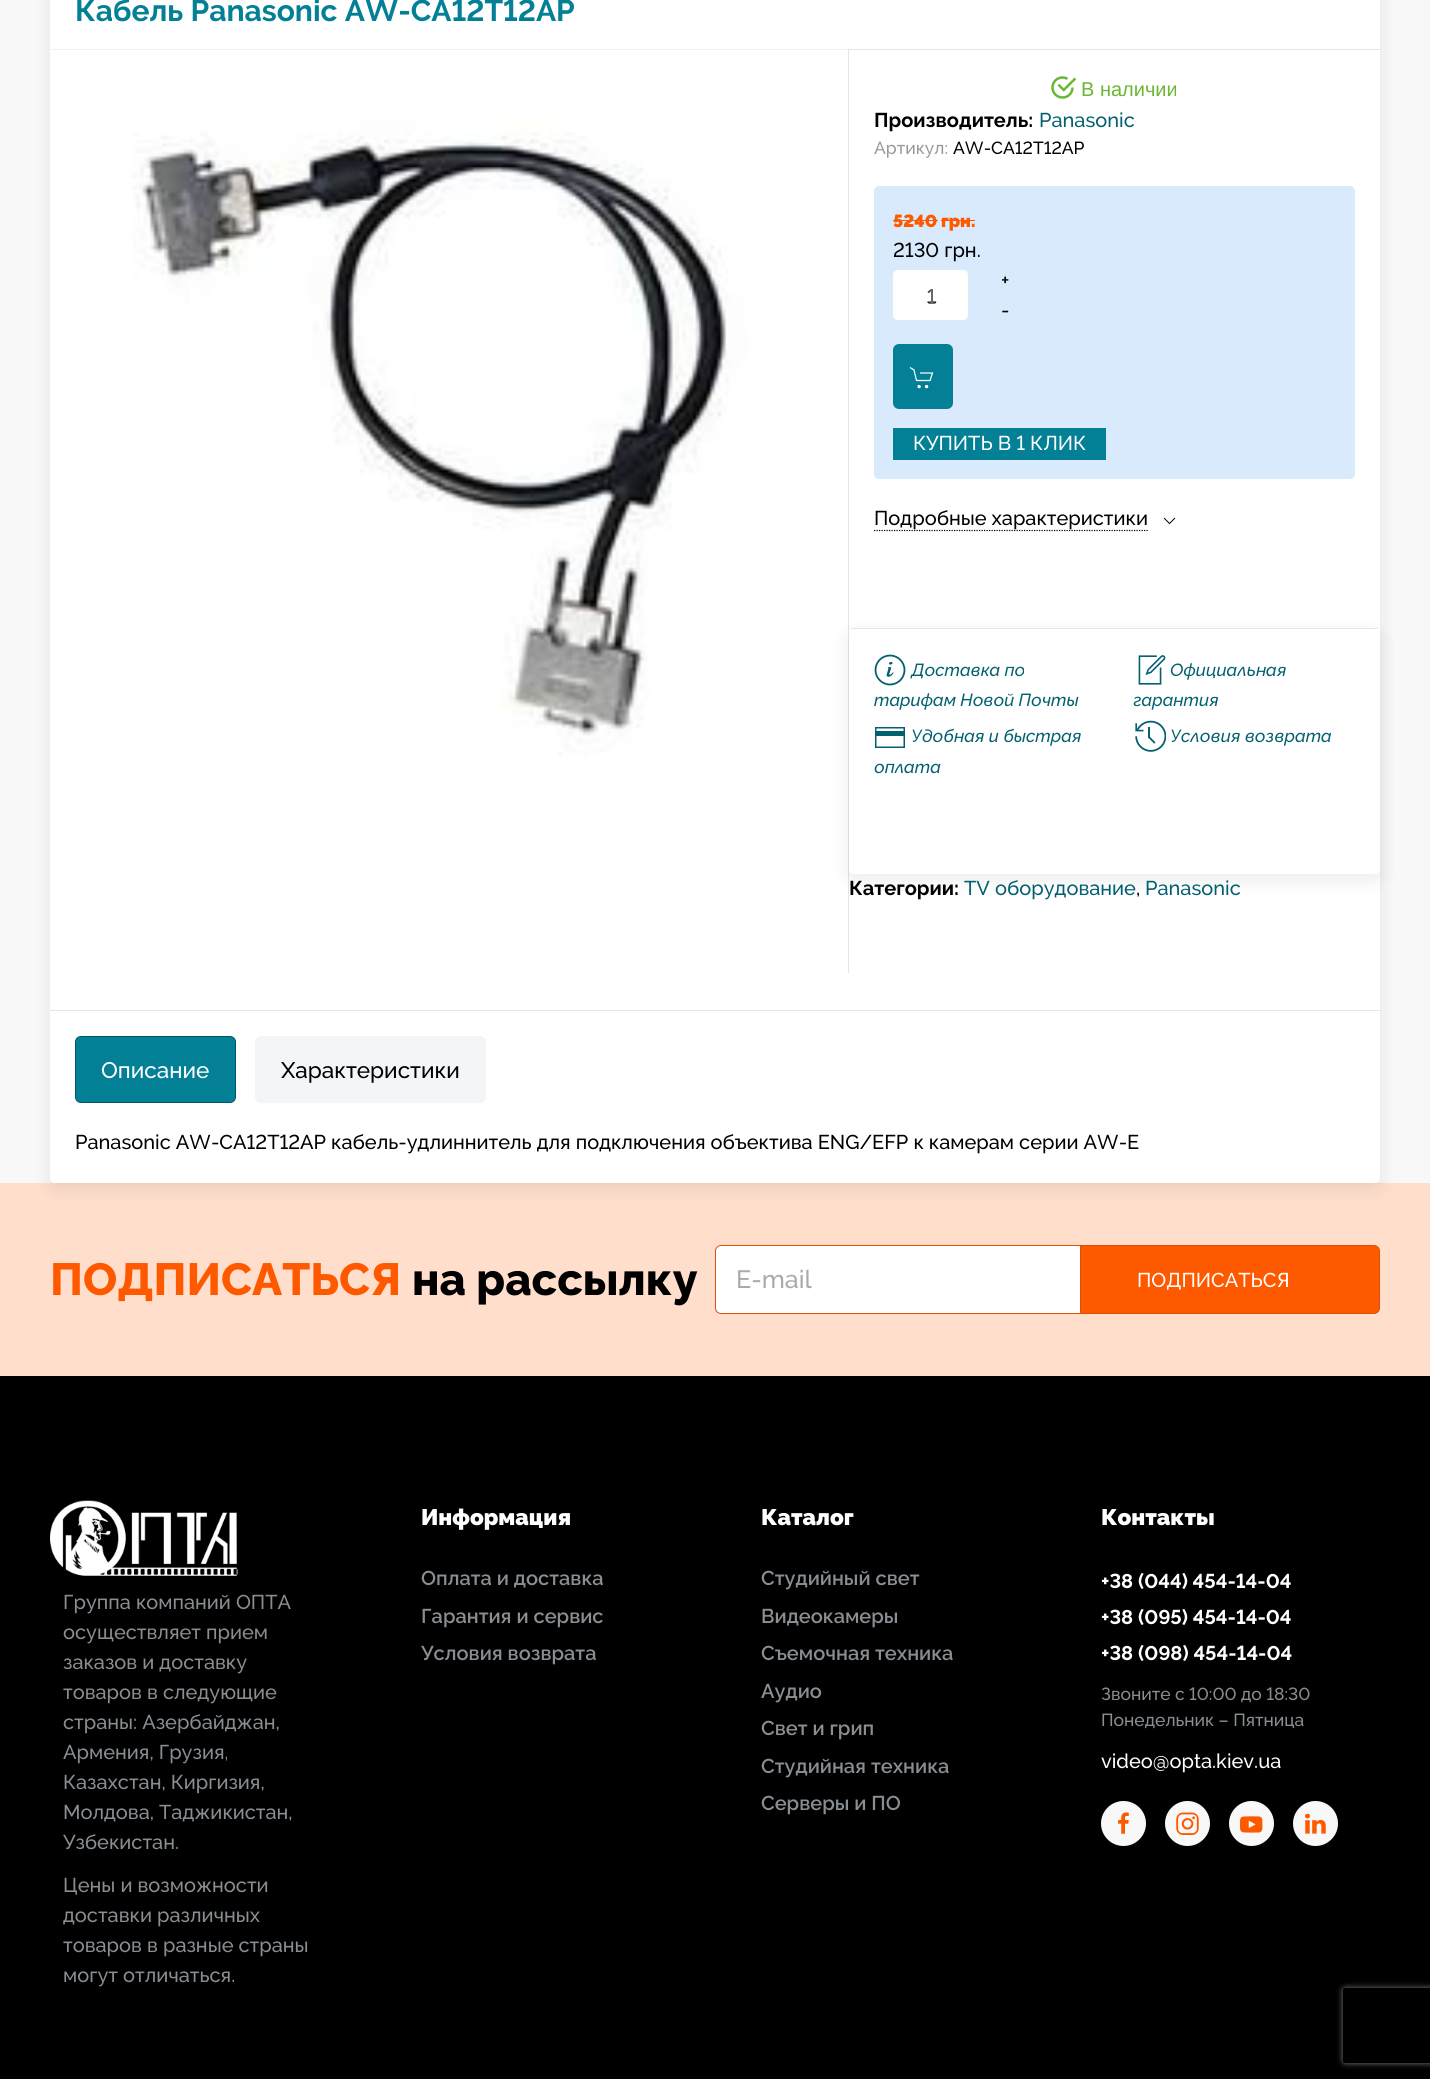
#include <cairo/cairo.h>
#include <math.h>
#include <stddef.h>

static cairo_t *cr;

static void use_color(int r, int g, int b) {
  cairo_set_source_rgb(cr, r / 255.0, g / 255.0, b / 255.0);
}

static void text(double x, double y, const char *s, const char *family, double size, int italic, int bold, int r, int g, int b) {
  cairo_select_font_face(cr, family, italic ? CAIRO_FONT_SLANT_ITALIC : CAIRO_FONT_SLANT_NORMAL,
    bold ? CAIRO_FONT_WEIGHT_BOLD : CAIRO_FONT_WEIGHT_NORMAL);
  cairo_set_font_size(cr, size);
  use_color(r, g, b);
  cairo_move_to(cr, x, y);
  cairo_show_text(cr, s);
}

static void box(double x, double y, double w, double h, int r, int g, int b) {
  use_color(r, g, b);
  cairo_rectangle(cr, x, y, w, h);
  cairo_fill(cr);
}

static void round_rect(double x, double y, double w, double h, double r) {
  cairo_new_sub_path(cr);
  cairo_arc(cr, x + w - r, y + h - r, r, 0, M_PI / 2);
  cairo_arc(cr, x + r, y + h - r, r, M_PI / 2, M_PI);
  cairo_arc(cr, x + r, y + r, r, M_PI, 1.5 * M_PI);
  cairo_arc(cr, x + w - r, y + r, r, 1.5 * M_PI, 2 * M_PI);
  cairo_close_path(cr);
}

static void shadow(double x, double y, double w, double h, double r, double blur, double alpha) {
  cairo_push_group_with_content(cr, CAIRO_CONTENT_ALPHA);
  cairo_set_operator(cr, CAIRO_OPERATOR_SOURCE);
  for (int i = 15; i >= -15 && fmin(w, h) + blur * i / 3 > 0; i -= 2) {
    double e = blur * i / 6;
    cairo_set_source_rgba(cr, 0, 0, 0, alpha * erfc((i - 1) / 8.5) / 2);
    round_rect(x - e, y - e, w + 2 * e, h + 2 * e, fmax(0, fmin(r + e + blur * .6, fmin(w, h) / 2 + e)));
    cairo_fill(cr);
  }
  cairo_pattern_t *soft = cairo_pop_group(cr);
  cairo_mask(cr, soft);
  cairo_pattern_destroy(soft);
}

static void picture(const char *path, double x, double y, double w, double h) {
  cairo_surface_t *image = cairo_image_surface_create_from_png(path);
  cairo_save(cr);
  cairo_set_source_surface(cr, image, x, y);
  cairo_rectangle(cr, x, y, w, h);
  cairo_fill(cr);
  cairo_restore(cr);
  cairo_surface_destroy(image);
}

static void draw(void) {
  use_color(248, 248, 248);
  cairo_paint(cr);
  box(0, 1183, 1430, 193, 255, 222, 204);
  use_color(0, 0, 0);
  shadow(50, -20, 1330, 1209, 5, 9.5, 0.08);
  use_color(255, 255, 255);
  round_rect(50, -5, 1330, 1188, 5);
  cairo_fill(cr);
  box(50, 49, 1330, 1, 229, 229, 229);
  picture("img_01.png", 50, 49, 798, 708);
  box(848, 50, 1, 923, 229, 229, 229);
  picture("img_02.png", 1051, 76, 26, 23);
  use_color(216, 234, 252);
  round_rect(874, 186, 481, 293, 5);
  cairo_fill(cr);
  box(893, 220, 45, 1, 255, 89, 0);
  box(941, 220, 34, 1, 255, 89, 0);
  use_color(255, 255, 255);
  round_rect(893.5, 270.5, 74, 49, 4.5);
  cairo_fill_preserve(cr);
  cairo_set_line_width(cr, 1);
  cairo_stroke(cr);
  use_color(3, 128, 150);
  round_rect(893, 344, 60, 65, 6);
  cairo_fill(cr);
  cairo_new_path(cr);
  cairo_move_to(cr, 910, 367.5);
  cairo_line_to(cr, 914, 370);
  cairo_line_to(cr, 916.5, 380.5);
  cairo_line_to(cr, 930, 380.5);
  cairo_line_to(cr, 932.5, 373);
  cairo_line_to(cr, 920, 373);
  use_color(255, 255, 255);
  cairo_set_line_width(cr, 1.2);
  cairo_stroke(cr);
  cairo_arc(cr, 919.1, 386.6, 1.7, 0, 2 * M_PI);
  cairo_fill(cr);
  cairo_arc(cr, 926.6, 386.6, 1.7, 0, 2 * M_PI);
  cairo_fill(cr);
  box(893, 428, 213, 32, 3, 128, 150);
  cairo_new_path(cr);
  cairo_move_to(cr, 874, 530.5);
  cairo_line_to(cr, 1149, 530.5);
  use_color(0, 0, 0);
  cairo_set_dash(cr, (double[]){1.25, 1.25}, 2, 0);
  cairo_stroke(cr);
  cairo_new_path(cr);
  cairo_move_to(cr, 1175, 518);
  cairo_line_to(cr, 1169.5, 523.5);
  cairo_line_to(cr, 1164, 518);
  cairo_set_line_width(cr, 1);
  cairo_set_dash(cr, NULL, 0, 0);
  cairo_stroke(cr);
  use_color(0, 0, 0);
  shadow(849, 634, 531, 246, 5, 9.5, 0.08);
  use_color(255, 255, 255);
  round_rect(849, 628, 531, 246, 5);
  cairo_fill(cr);
  box(851, 628, 527, 1, 229, 229, 229);
  picture("img_03.png", 874, 654, 32, 32);
  picture("img_04.png", 1138, 655, 28, 30);
  cairo_rectangle(cr, 875.75, 727.75, 28.5, 19.5);
  use_color(3, 96, 112);
  cairo_set_line_width(cr, 1.5);
  cairo_stroke(cr);
  box(875, 731, 30, 5, 3, 96, 112);
  picture("img_05.png", 1135, 720, 31, 32);
  box(50, 1010, 1330, 1, 229, 229, 229);
  use_color(3, 128, 150);
  round_rect(75.5, 1036.5, 160, 66, 5.5);
  cairo_fill_preserve(cr);
  use_color(2, 85, 100);
  cairo_set_line_width(cr, 1);
  cairo_stroke(cr);
  use_color(244, 245, 246);
  round_rect(255, 1036, 231, 67, 6);
  cairo_fill(cr);
  use_color(255, 89, 0);
  cairo_new_path(cr);
  cairo_move_to(cr, 1048.5, 1245.5);
  cairo_line_to(cr, 1374, 1245.5);
  cairo_curve_to(cr, 1377, 1245.5, 1379.5, 1248, 1379.5, 1251);
  cairo_line_to(cr, 1379.5, 1308);
  cairo_curve_to(cr, 1379.5, 1311, 1377, 1313.5, 1374, 1313.5);
  cairo_line_to(cr, 1048.5, 1313.5);
  cairo_close_path(cr);
  cairo_fill_preserve(cr);
  use_color(217, 82, 9);
  cairo_stroke(cr);
  use_color(255, 255, 255);
  cairo_new_path(cr);
  cairo_move_to(cr, 721, 1245.5);
  cairo_line_to(cr, 1080.5, 1245.5);
  cairo_line_to(cr, 1080.5, 1313.5);
  cairo_line_to(cr, 721, 1313.5);
  cairo_curve_to(cr, 718, 1313.5, 715.5, 1311, 715.5, 1308);
  cairo_line_to(cr, 715.5, 1251);
  cairo_curve_to(cr, 715.5, 1248, 718, 1245.5, 721, 1245.5);
  cairo_close_path(cr);
  cairo_fill_preserve(cr);
  use_color(217, 82, 9);
  cairo_stroke(cr);
  box(0, 1376, 1430, 703, 0, 0, 0);
  picture("img_06.png", 50, 1500, 188, 76);
  use_color(248, 248, 248);
  cairo_arc(cr, 1123.5, 1823.5, 22.5, 0, 2 * M_PI);
  cairo_fill(cr);
  picture("img_07.png", 1118, 1812, 11, 22);
  cairo_arc(cr, 1187.5, 1823.5, 22.5, 0, 2 * M_PI);
  cairo_fill(cr);
  picture("img_08.png", 1176, 1812, 23, 23);
  cairo_arc(cr, 1251.5, 1823.5, 22.5, 0, 2 * M_PI);
  cairo_fill(cr);
  picture("img_09.png", 1240, 1816, 23, 17);
  cairo_arc(cr, 1315.5, 1823.5, 22.5, 0, 2 * M_PI);
  cairo_fill(cr);
  picture("img_10.png", 1305, 1813, 21, 21);
  cairo_save(cr);
  cairo_set_fill_rule(cr, CAIRO_FILL_RULE_EVEN_ODD);
  cairo_new_path(cr);
  cairo_move_to(cr, 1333, 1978);
  cairo_line_to(cr, 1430, 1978);
  cairo_line_to(cr, 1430, 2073);
  cairo_line_to(cr, 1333, 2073);
  cairo_close_path(cr);
  cairo_move_to(cr, 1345.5, 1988);
  cairo_line_to(cr, 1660.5, 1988);
  cairo_curve_to(cr, 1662, 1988, 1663, 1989, 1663, 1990.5);
  cairo_line_to(cr, 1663, 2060.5);
  cairo_curve_to(cr, 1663, 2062, 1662, 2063, 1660.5, 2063);
  cairo_line_to(cr, 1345.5, 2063);
  cairo_curve_to(cr, 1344, 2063, 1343, 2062, 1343, 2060.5);
  cairo_line_to(cr, 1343, 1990.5);
  cairo_curve_to(cr, 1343, 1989, 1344, 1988, 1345.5, 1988);
  cairo_close_path(cr);
  cairo_clip(cr);
  use_color(128, 128, 128);
  shadow(1343, 1988, 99, 75, 2.5, 3, 1);
  cairo_restore(cr);
  text(75, 21, "Кабель Panasonic AW-CA12T12AP", "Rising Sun", 30, 0, 1, 3, 128, 150);
  text(1081, 96, "В наличии", "Liberation Sans", 20, 0, 0, 106, 182, 53);
  text(874, 127, "Производитель:", "Rising Sun", 20, 0, 1, 0, 0, 0);
  text(1039, 127, "Panasonic", "Rising Sun Medium", 20, 0, 0, 3, 96, 112);
  text(874, 154, "Артикул:", "Rising Sun Medium", 17.5, 0, 0, 153, 153, 153);
  text(953, 154, "AW-CA12T12AP", "Rising Sun Medium", 17.5, 0, 0, 0, 0, 0);
  text(893, 227, "5240 грн.", "Rising Sun Black", 17.5, 0, 0, 255, 89, 0);
  text(893, 257, "2130 грн.", "Rising Sun Medium", 20, 0, 0, 0, 0, 0);
  text(1001, 287, "+", "Rising Sun Medium", 20, 0, 0, 0, 0, 0);
  text(926, 303, "1", "Liberation Sans", 20, 0, 0, 0, 0, 0);
  text(927, 304, "1", "Rising Sun Medium", 20, 0, 0, 111, 111, 111);
  text(1001, 317, "-", "Rising Sun Medium", 20, 0, 0, 0, 0, 0);
  text(913, 450, "КУПИТЬ В 1 КЛИК", "Rising Sun Medium", 20, 0, 0, 255, 255, 255);
  text(874, 525, "Подробные характеристики", "Rising Sun Medium", 20, 0, 0, 0, 0, 0);
  text(911, 676, "Доставка по", "Rising Sun Medium", 17.5, 1, 0, 3, 96, 112);
  text(874, 706, "тарифам Новой Почты", "Rising Sun Medium", 17.5, 1, 0, 3, 96, 112);
  text(1170, 676, "Официальная", "Rising Sun Medium", 17.5, 1, 0, 3, 96, 112);
  text(1133, 706, "гарантия", "Rising Sun Medium", 17.5, 1, 0, 3, 96, 112);
  text(911, 742, "Удобная и быстрая", "Rising Sun Medium", 17.5, 1, 0, 3, 96, 112);
  text(874, 773, "оплата", "Rising Sun Medium", 17.5, 1, 0, 3, 96, 112);
  text(1170, 742, "Условия возврата", "Rising Sun Medium", 17.5, 1, 0, 3, 96, 112);
  text(849, 895, "Категории:", "Rising Sun", 20, 0, 1, 0, 0, 0);
  text(964, 895, "TV оборудование", "Rising Sun Medium", 20, 0, 0, 3, 96, 112);
  text(1136, 895, ",", "Rising Sun Medium", 20, 0, 0, 0, 0, 0);
  text(1145, 895, "Panasonic", "Rising Sun Medium", 20, 0, 0, 3, 96, 112);
  text(101, 1078, "Описание", "Rising Sun Medium", 22.5, 0, 0, 255, 255, 255);
  text(281, 1078, "Характеристики", "Rising Sun Medium", 22.5, 0, 0, 0, 0, 0);
  text(75, 1149, "Panasonic AW-CA12T12AP кабель-удлиннитель для подключения объектива ENG/EFP к камерам серии AW-E", "Rising Sun Medium", 20, 0, 0, 0, 0, 0);
  text(50, 1295, "ПОДПИСАТЬСЯ", "Rising Sun ExtraBold", 45, 0, 0, 255, 89, 0);
  text(412, 1295, "на рассылку", "Rising Sun ExtraBold", 45, 0, 0, 0, 0, 0);
  text(736, 1288, "E-mail", "Rising Sun Medium", 25, 0, 0, 170, 170, 170);
  text(1137, 1287, "ПОДПИСАТЬСЯ", "Rising Sun Medium", 20, 0, 0, 255, 255, 255);
  text(63, 1609, "Группа компаний ОПТА", "Rising Sun Medium", 20, 0, 0, 137, 142, 147);
  text(63, 1639, "осуществляет прием", "Rising Sun Medium", 20, 0, 0, 137, 142, 147);
  text(63, 1669, "заказов и доставку", "Rising Sun Medium", 20, 0, 0, 137, 142, 147);
  text(63, 1699, "товаров в следующие", "Rising Sun Medium", 20, 0, 0, 137, 142, 147);
  text(63, 1729, "страны: Азербайджан,", "Rising Sun Medium", 20, 0, 0, 137, 142, 147);
  text(63, 1759, "Армения, Грузия,", "Rising Sun Medium", 20, 0, 0, 137, 142, 147);
  text(63, 1789, "Казахстан, Киргизия,", "Rising Sun Medium", 20, 0, 0, 137, 142, 147);
  text(63, 1819, "Молдова, Таджикистан,", "Rising Sun Medium", 20, 0, 0, 137, 142, 147);
  text(63, 1849, "Узбекистан.", "Rising Sun Medium", 20, 0, 0, 137, 142, 147);
  text(63, 1892, "Цены и возможности", "Rising Sun Medium", 20, 0, 0, 137, 142, 147);
  text(63, 1922, "доставки различных", "Rising Sun Medium", 20, 0, 0, 137, 142, 147);
  text(63, 1952, "товаров в разные страны", "Rising Sun Medium", 20, 0, 0, 137, 142, 147);
  text(63, 1982, "могут отличаться.", "Rising Sun Medium", 20, 0, 0, 137, 142, 147);
  text(421, 1525, "Информация", "Rising Sun Black", 22.5, 0, 0, 255, 255, 255);
  text(421, 1585, "Оплата и доставка", "Rising Sun SemiBold", 20, 0, 0, 137, 142, 147);
  text(421, 1623, "Гарантия и сервис", "Rising Sun SemiBold", 20, 0, 0, 137, 142, 147);
  text(421, 1660, "Условия возврата", "Rising Sun SemiBold", 20, 0, 0, 137, 142, 147);
  text(761, 1525, "Каталог", "Rising Sun Black", 22.5, 0, 0, 255, 255, 255);
  text(761, 1585, "Студийный свет", "Rising Sun SemiBold", 20, 0, 0, 137, 142, 147);
  text(761, 1623, "Видеокамеры", "Rising Sun SemiBold", 20, 0, 0, 137, 142, 147);
  text(761, 1660, "Съемочная техника", "Rising Sun SemiBold", 20, 0, 0, 137, 142, 147);
  text(761, 1698, "Аудио", "Rising Sun SemiBold", 20, 0, 0, 137, 142, 147);
  text(761, 1735, "Свет и грип", "Rising Sun SemiBold", 20, 0, 0, 137, 142, 147);
  text(761, 1773, "Студийная техника", "Rising Sun SemiBold", 20, 0, 0, 137, 142, 147);
  text(761, 1810, "Серверы и ПО", "Rising Sun SemiBold", 20, 0, 0, 137, 142, 147);
  text(1101, 1525, "Контакты", "Rising Sun Black", 22.5, 0, 0, 255, 255, 255);
  text(1101, 1588, "+38 (044) 454-14-04", "Rising Sun", 20, 0, 1, 255, 255, 255);
  text(1101, 1624, "+38 (095) 454-14-04", "Rising Sun", 20, 0, 1, 255, 255, 255);
  text(1101, 1660, "+38 (098) 454-14-04", "Rising Sun", 20, 0, 1, 255, 255, 255);
  text(1101, 1700, "Звоните с 10:00 до 18:30", "Rising Sun Medium", 17.5, 0, 0, 137, 142, 147);
  text(1101, 1726, "Понедельник – Пятница", "Rising Sun Medium", 17.5, 0, 0, 137, 142, 147);
  text(1101, 1768, "video@opta.kiev.ua", "Rising Sun Medium", 20, 0, 0, 255, 255, 255);
}

int main(void) {
  cairo_surface_t *surface = cairo_image_surface_create(CAIRO_FORMAT_RGB24, 1430, 2079);
  cr = cairo_create(surface);
  cairo_font_options_t *options = cairo_font_options_create();
  cairo_font_options_set_hint_metrics(options, CAIRO_HINT_METRICS_OFF);
  cairo_font_options_set_hint_style(options, CAIRO_HINT_STYLE_NONE);
  cairo_set_font_options(cr, options);
  cairo_set_miter_limit(cr, 4);
  draw();
  cairo_surface_write_to_png(surface, "out.png");
  cairo_font_options_destroy(options);
  cairo_destroy(cr);
  cairo_surface_destroy(surface);
  return 0;
}
